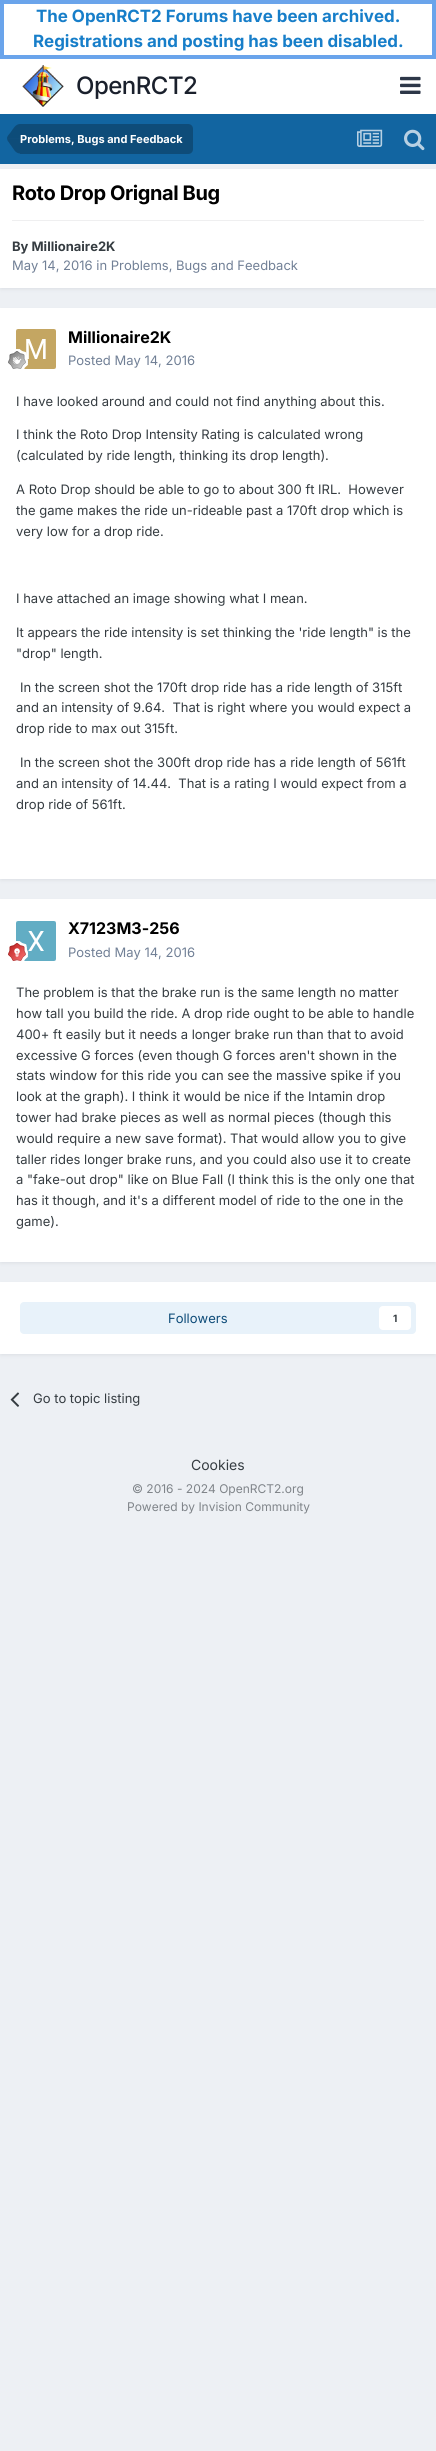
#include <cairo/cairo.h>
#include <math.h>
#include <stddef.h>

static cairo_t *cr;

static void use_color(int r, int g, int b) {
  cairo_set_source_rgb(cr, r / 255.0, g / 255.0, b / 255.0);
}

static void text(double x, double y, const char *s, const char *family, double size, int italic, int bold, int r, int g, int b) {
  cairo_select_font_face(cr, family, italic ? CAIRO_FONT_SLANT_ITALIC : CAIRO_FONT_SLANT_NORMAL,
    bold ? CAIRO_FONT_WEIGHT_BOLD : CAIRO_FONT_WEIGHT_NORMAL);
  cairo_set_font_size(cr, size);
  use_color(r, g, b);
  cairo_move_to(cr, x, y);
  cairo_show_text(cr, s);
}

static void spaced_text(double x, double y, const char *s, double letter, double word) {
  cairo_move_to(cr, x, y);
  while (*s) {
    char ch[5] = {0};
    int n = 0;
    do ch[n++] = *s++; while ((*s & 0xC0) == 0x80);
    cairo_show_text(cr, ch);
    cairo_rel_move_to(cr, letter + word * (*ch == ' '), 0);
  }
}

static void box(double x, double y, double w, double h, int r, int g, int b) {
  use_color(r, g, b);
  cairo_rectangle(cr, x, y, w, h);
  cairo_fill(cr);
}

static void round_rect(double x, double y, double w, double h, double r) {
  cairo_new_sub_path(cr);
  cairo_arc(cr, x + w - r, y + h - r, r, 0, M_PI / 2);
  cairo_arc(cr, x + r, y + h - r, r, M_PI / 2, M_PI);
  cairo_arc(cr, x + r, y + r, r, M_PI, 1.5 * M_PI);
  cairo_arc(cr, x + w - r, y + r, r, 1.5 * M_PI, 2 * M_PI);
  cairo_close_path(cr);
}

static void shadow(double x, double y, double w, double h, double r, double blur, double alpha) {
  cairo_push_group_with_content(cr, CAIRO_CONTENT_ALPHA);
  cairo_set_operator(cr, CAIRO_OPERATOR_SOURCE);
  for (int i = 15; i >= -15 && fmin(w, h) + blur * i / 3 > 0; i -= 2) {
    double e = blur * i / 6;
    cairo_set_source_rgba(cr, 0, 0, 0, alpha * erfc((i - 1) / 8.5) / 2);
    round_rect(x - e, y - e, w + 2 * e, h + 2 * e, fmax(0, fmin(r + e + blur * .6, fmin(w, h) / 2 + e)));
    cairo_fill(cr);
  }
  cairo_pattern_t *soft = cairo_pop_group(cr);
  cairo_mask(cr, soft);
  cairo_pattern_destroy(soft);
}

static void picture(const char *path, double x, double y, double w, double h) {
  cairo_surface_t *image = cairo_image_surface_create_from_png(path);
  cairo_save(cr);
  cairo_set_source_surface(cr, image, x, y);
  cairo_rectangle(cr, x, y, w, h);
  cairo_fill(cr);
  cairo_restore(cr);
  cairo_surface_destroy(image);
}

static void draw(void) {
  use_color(237, 240, 244);
  cairo_paint(cr);
  use_color(255, 255, 255);
  cairo_rectangle(cr, 2, 2, 432, 55);
  cairo_fill_preserve(cr);
  use_color(106, 164, 235);
  cairo_set_line_width(cr, 4);
  cairo_stroke(cr);
  box(0, 59, 436, 55, 255, 255, 255);
  picture("img_01.png", 22, 65, 42, 42);
  picture("img_02.png", 400, 76, 21, 18);
  box(0, 114, 436, 50, 18, 101, 161);
  use_color(14, 76, 121);
  cairo_new_path(cr);
  cairo_move_to(cr, 20, 124);
  cairo_line_to(cr, 188, 124);
  cairo_curve_to(cr, 191, 124, 193, 126, 193, 129);
  cairo_line_to(cr, 193, 149);
  cairo_curve_to(cr, 193, 152, 191, 154, 188, 154);
  cairo_line_to(cr, 20, 154);
  cairo_close_path(cr);
  cairo_fill(cr);
  cairo_new_path(cr);
  cairo_move_to(cr, 7.5, 140.5);
  cairo_line_to(cr, 7, 138.5);
  cairo_line_to(cr, 20, 138.5);
  cairo_line_to(cr, 20, 153.5);
  cairo_curve_to(cr, 18, 153.5, 16, 152.5, 14.5, 150.5);
  cairo_close_path(cr);
  cairo_fill(cr);
  cairo_set_source_rgba(cr, 0, 0, 0, 0.25);
  cairo_new_path(cr);
  cairo_move_to(cr, 20, 124);
  cairo_line_to(cr, 20, 138.5);
  cairo_line_to(cr, 7, 138.5);
  cairo_curve_to(cr, 7, 136, 9, 134.5, 10.5, 132.5);
  cairo_curve_to(cr, 13, 129, 15.5, 124, 20, 124);
  cairo_close_path(cr);
  cairo_fill(cr);
  picture("img_03.png", 357, 129, 26, 18);
  picture("img_04.png", 404, 129, 21, 22);
  use_color(45, 55, 72);
  shadow(1, 172, 434, 117, 0, 2, 0.1);
  box(0, 169, 436, 119, 255, 255, 255);
  box(12, 220, 412, 1, 239, 239, 240);
  use_color(45, 55, 72);
  shadow(1, 311, 434, 569, 0, 2, 0.1);
  box(0, 308, 436, 571, 255, 255, 255);
  picture("img_05.png", 16, 329, 40, 40);
  picture("img_06.png", 8, 349, 20, 20);
  use_color(45, 55, 72);
  shadow(1, 902, 434, 361, 0, 2, 0.1);
  box(0, 899, 436, 363, 255, 255, 255);
  picture("img_07.png", 16, 921, 40, 40);
  picture("img_08.png", 8, 941, 20, 20);
  use_color(45, 55, 72);
  shadow(1, 1285, 434, 70, 0, 2, 0.1);
  box(0, 1282, 436, 72, 255, 255, 255);
  use_color(232, 242, 250);
  round_rect(20, 1302, 396, 32, 4);
  cairo_fill(cr);
  use_color(255, 255, 255);
  round_rect(379, 1306, 32, 24, 4);
  cairo_fill(cr);
  picture("img_09.png", 10, 1392, 10, 15);
  text(36, 22, "The OpenRCT2 Forums have been archived.", "Inter", 16.9, 0, 1, 23, 126, 201);
  text(33, 47, "Registrations and posting has been disabled.", "Inter", 16.9, 0, 1, 23, 126, 201);
  cairo_select_font_face(cr, "Inter Medium", CAIRO_FONT_SLANT_NORMAL, CAIRO_FONT_WEIGHT_NORMAL);
  cairo_set_font_size(cr, 24);
  use_color(26, 32, 44);
  spaced_text(76, 94, "OpenRCT2", -0.5, 0);
  text(20, 143, "Problems, Bugs and Feedback", "Inter", 11, 0, 1, 255, 255, 255);
  cairo_set_font_size(cr, 20);
  use_color(0, 0, 0);
  spaced_text(12, 200, "Roto Drop Orignal Bug", -0.4, 0);
  text(12, 251, "By Millionaire2K", "Inter", 13, 0, 1, 53, 60, 65);
  text(12, 270, "May 14, 2016 in Problems, Bugs and Feedback", "Inter", 13, 0, 0, 113, 128, 150);
  text(68, 343, "Millionaire2K", "Inter", 16, 0, 1, 0, 0, 0);
  text(68, 365, "Posted May 14, 2016", "Inter", 13, 0, 0, 113, 128, 150);
  text(16, 406, "I have looked around and could not find anything about this.", "Inter", 13, 0, 0, 53, 60, 65);
  text(16, 439, "I think the Roto Drop Intensity Rating is calculated wrong", "Inter", 13, 0, 0, 53, 60, 65);
  text(16, 460, "(calculated by ride length, thinking its drop length).", "Inter", 13, 0, 0, 53, 60, 65);
  text(16, 494, "A Roto Drop should be able to go to about 300 ft IRL.  However", "Inter", 13, 0, 0, 53, 60, 65);
  text(16, 515, "the game makes the ride un-rideable past a 170ft drop which is", "Inter", 13, 0, 0, 53, 60, 65);
  text(16, 536, "very low for a drop ride.", "Inter", 13, 0, 0, 53, 60, 65);
  text(16, 603, "I have attached an image showing what I mean.", "Inter", 13, 0, 0, 53, 60, 65);
  text(16, 637, "It appears the ride intensity is set thinking the 'ride length\" is the", "Inter", 13, 0, 0, 53, 60, 65);
  text(16, 658, "\"drop\" length.", "Inter", 13, 0, 0, 53, 60, 65);
  text(20, 692, "In the screen shot the 170ft drop ride has a ride length of 315ft", "Inter", 13, 0, 0, 53, 60, 65);
  text(16, 712, "and an intensity of 9.64.  That is right where you would expect a", "Inter", 13, 0, 0, 53, 60, 65);
  text(16, 733, "drop ride to max out 315ft.", "Inter", 13, 0, 0, 53, 60, 65);
  text(20, 767, "In the screen shot the 300ft drop ride has a ride length of 561ft", "Inter", 13, 0, 0, 53, 60, 65);
  text(16, 788, "and an intensity of 14.44.  That is a rating I would expect from a", "Inter", 13, 0, 0, 53, 60, 65);
  text(16, 809, "drop ride of 561ft.", "Inter", 13, 0, 0, 53, 60, 65);
  text(68, 934, "X7123M3-256", "Inter", 16, 0, 1, 0, 0, 0);
  text(68, 957, "Posted May 14, 2016", "Inter", 13, 0, 0, 113, 128, 150);
  text(16, 997, "The problem is that the brake run is the same length no matter", "Inter", 13, 0, 0, 53, 60, 65);
  text(16, 1018, "how tall you build the ride. A drop ride ought to be able to handle", "Inter", 13, 0, 0, 53, 60, 65);
  text(16, 1039, "400+ ft easily but it needs a longer brake run than that to avoid", "Inter", 13, 0, 0, 53, 60, 65);
  text(16, 1060, "excessive G forces (even though G forces aren't shown in the", "Inter", 13, 0, 0, 53, 60, 65);
  text(16, 1080, "stats window for this ride you can see the massive spike if you", "Inter", 13, 0, 0, 53, 60, 65);
  text(16, 1101, "look at the graph). I think it would be nice if the Intamin drop", "Inter", 13, 0, 0, 53, 60, 65);
  text(16, 1122, "tower had brake pieces as well as normal pieces (though this", "Inter", 13, 0, 0, 53, 60, 65);
  text(16, 1143, "would require a new save format). That would allow you to give", "Inter", 13, 0, 0, 53, 60, 65);
  text(16, 1164, "taller rides longer brake runs, and you could also use it to create", "Inter", 13, 0, 0, 53, 60, 65);
  text(16, 1184, "a \"fake-out drop\" like on Blue Fall (I think this is the only one that", "Inter", 13, 0, 0, 53, 60, 65);
  text(16, 1205, "has it though, and it's a different model of ride to the one in the", "Inter", 13, 0, 0, 53, 60, 65);
  text(16, 1226, "game).", "Inter", 13, 0, 0, 53, 60, 65);
  text(168, 1323, "Followers", "Inter", 13, 0, 0, 14, 76, 121);
  text(393, 1322, "1", "Inter", 10, 0, 1, 53, 60, 65);
  text(33, 1403, "Go to topic listing", "Inter", 13, 0, 0, 53, 60, 65);
  text(191, 1470, "Cookies", "Inter", 14, 0, 0, 53, 60, 65);
  text(132, 1493, "© 2016 - 2024 OpenRCT2.org", "Inter", 12, 0, 0, 127, 132, 137);
  text(127, 1511, "Powered by Invision Community", "Inter", 12, 0, 0, 127, 132, 137);
}

int main(void) {
  cairo_surface_t *surface = cairo_image_surface_create(CAIRO_FORMAT_RGB24, 436, 2451);
  cr = cairo_create(surface);
  cairo_font_options_t *options = cairo_font_options_create();
  cairo_font_options_set_hint_metrics(options, CAIRO_HINT_METRICS_OFF);
  cairo_font_options_set_hint_style(options, CAIRO_HINT_STYLE_NONE);
  cairo_set_font_options(cr, options);
  cairo_set_miter_limit(cr, 4);
  draw();
  cairo_surface_write_to_png(surface, "out.png");
  cairo_font_options_destroy(options);
  cairo_destroy(cr);
  cairo_surface_destroy(surface);
  return 0;
}
